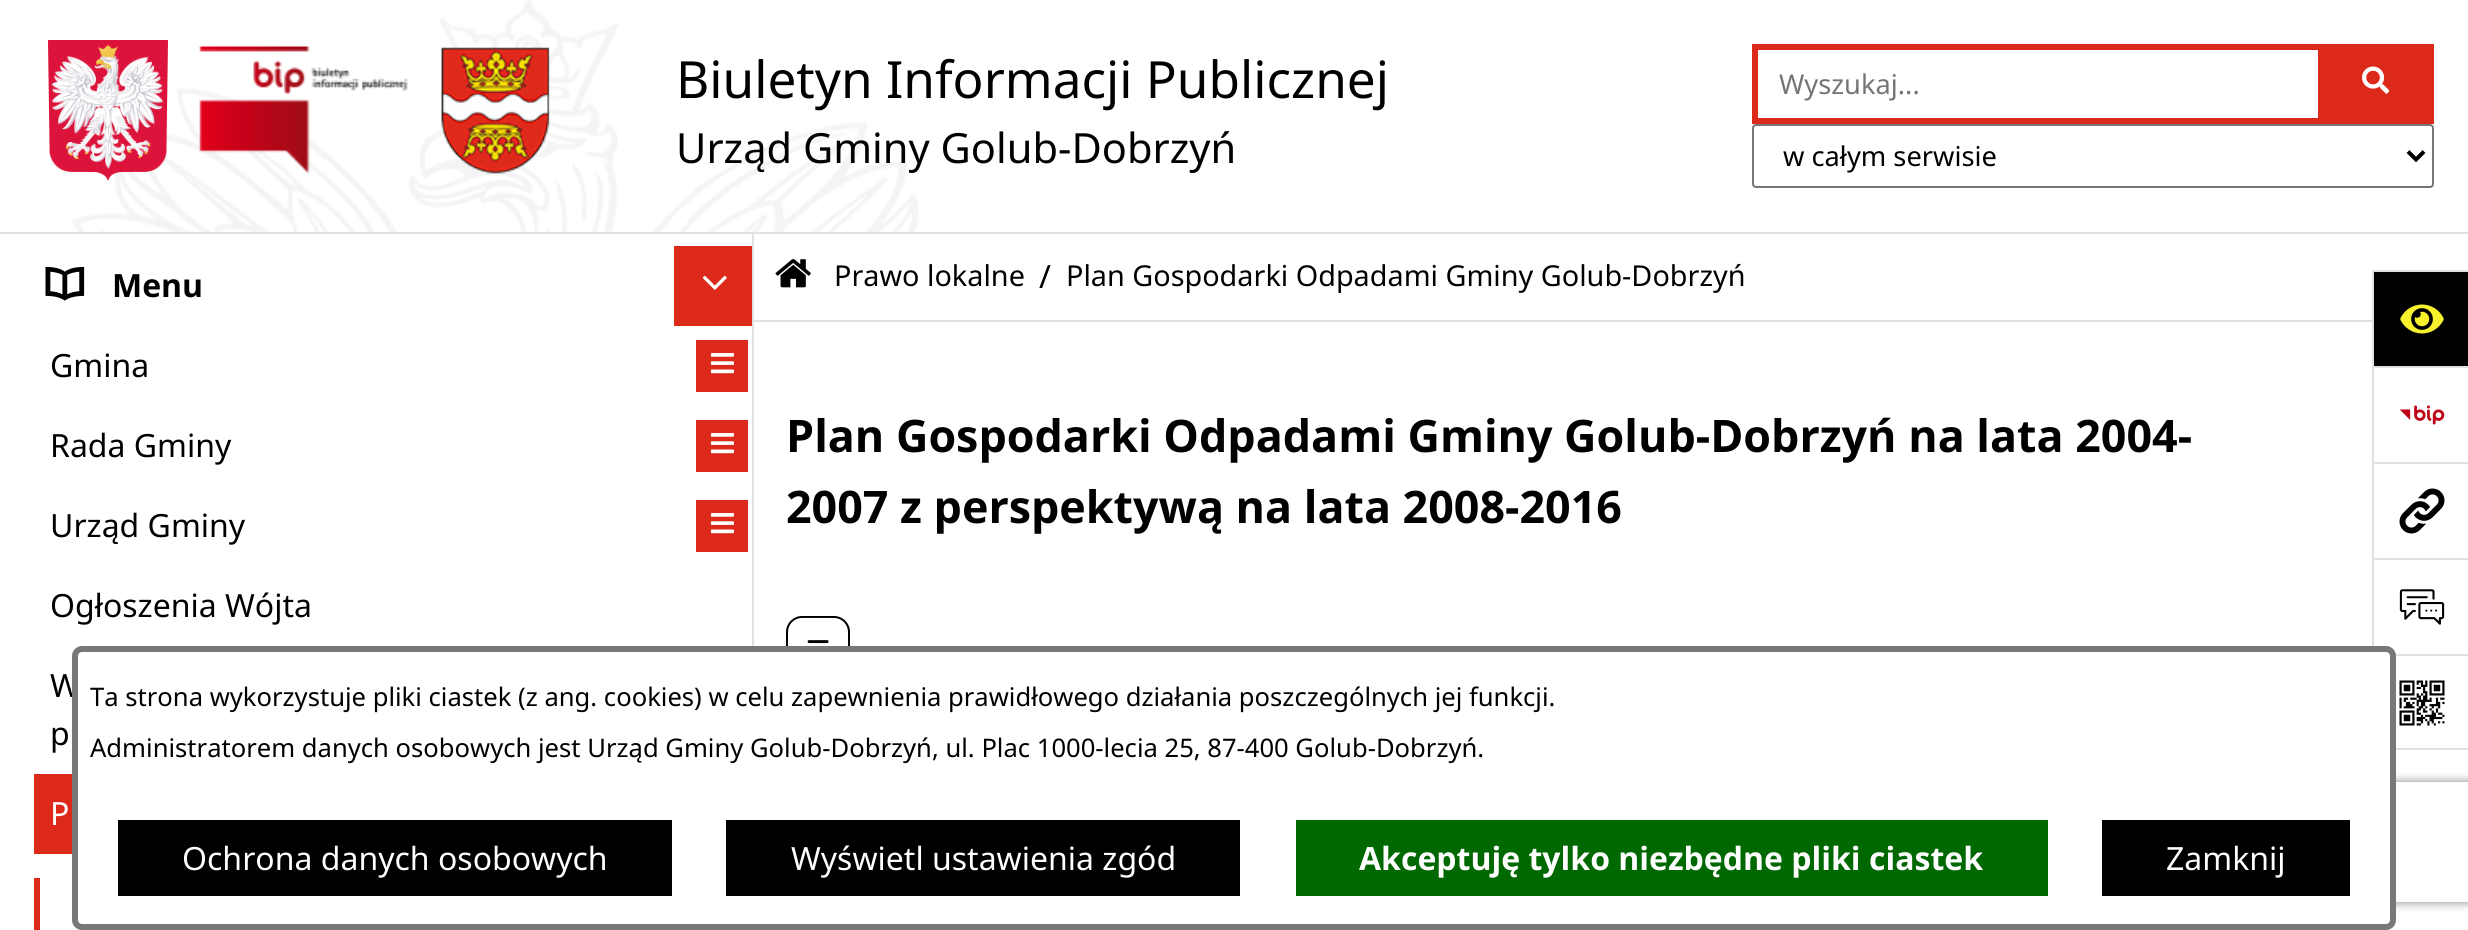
#include <cairo/cairo.h>
#include <math.h>
#include <stddef.h>

static cairo_t *cr;

static void use_color(int r, int g, int b) {
  cairo_set_source_rgb(cr, r / 255.0, g / 255.0, b / 255.0);
}

static void text(double x, double y, const char *s, const char *family, double size, int italic, int bold, int r, int g, int b) {
  cairo_select_font_face(cr, family, italic ? CAIRO_FONT_SLANT_ITALIC : CAIRO_FONT_SLANT_NORMAL,
    bold ? CAIRO_FONT_WEIGHT_BOLD : CAIRO_FONT_WEIGHT_NORMAL);
  cairo_set_font_size(cr, size);
  use_color(r, g, b);
  cairo_move_to(cr, x, y);
  cairo_show_text(cr, s);
}

static void box(double x, double y, double w, double h, int r, int g, int b) {
  use_color(r, g, b);
  cairo_rectangle(cr, x, y, w, h);
  cairo_fill(cr);
}

static void round_rect(double x, double y, double w, double h, double r) {
  cairo_new_sub_path(cr);
  cairo_arc(cr, x + w - r, y + h - r, r, 0, M_PI / 2);
  cairo_arc(cr, x + r, y + h - r, r, M_PI / 2, M_PI);
  cairo_arc(cr, x + r, y + r, r, M_PI, 1.5 * M_PI);
  cairo_arc(cr, x + w - r, y + r, r, 1.5 * M_PI, 2 * M_PI);
  cairo_close_path(cr);
}

static void shadow(double x, double y, double w, double h, double r, double blur, double alpha) {
  cairo_push_group_with_content(cr, CAIRO_CONTENT_ALPHA);
  cairo_set_operator(cr, CAIRO_OPERATOR_SOURCE);
  for (int i = 15; i >= -15 && fmin(w, h) + blur * i / 3 > 0; i -= 2) {
    double e = blur * i / 6;
    cairo_set_source_rgba(cr, 0, 0, 0, alpha * erfc((i - 1) / 8.5) / 2);
    round_rect(x - e, y - e, w + 2 * e, h + 2 * e, fmax(0, fmin(r + e + blur * .6, fmin(w, h) / 2 + e)));
    cairo_fill(cr);
  }
  cairo_pattern_t *soft = cairo_pop_group(cr);
  cairo_mask(cr, soft);
  cairo_pattern_destroy(soft);
}

static void picture(const char *path, double x, double y, double w, double h) {
  cairo_surface_t *image = cairo_image_surface_create_from_png(path);
  cairo_save(cr);
  cairo_set_source_surface(cr, image, x, y);
  cairo_rectangle(cr, x, y, w, h);
  cairo_fill(cr);
  cairo_restore(cr);
  cairo_surface_destroy(image);
}

static void draw(void) {
  use_color(255, 255, 255);
  cairo_paint(cr);
  box(752, 232, 2, 414, 225, 225, 225);
  box(0, 232, 2468, 2, 225, 225, 225);
  picture("img_01.png", 72, 0, 847, 232);
  picture("img_02.png", 48, 40, 120, 140);
  picture("img_03.png", 199, 46, 209, 128);
  picture("img_04.png", 441, 47, 109, 127);
  cairo_rectangle(cr, 1755, 47, 566, 74);
  use_color(221, 41, 26);
  cairo_set_line_width(cr, 6);
  cairo_stroke(cr);
  box(2324, 44, 110, 80, 221, 41, 26);
  picture("img_05.png", 2362, 66, 28, 28);
  round_rect(1753, 125, 680, 62, 3);
  use_color(118, 118, 118);
  cairo_set_line_width(cr, 2);
  cairo_stroke(cr);
  cairo_new_path(cr);
  cairo_move_to(cr, 2408, 151.5);
  cairo_line_to(cr, 2416, 159.5);
  cairo_line_to(cr, 2424, 151.5);
  use_color(0, 0, 0);
  cairo_set_line_width(cr, 4);
  cairo_stroke(cr);
  picture("img_06.png", 45, 266, 40, 35);
  box(674, 246, 78, 80, 221, 41, 26);
  picture("img_07.png", 702, 275, 25, 15);
  box(696, 340, 52, 52, 221, 41, 26);
  picture("img_08.png", 710, 353, 24, 21);
  box(696, 420, 52, 52, 221, 41, 26);
  picture("img_08.png", 710, 433, 24, 21);
  box(696, 500, 52, 52, 221, 41, 26);
  picture("img_08.png", 710, 513, 24, 21);
  box(34, 774, 38, 80, 221, 41, 26);
  cairo_new_path(cr);
  cairo_move_to(cr, 34, 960);
  cairo_line_to(cr, 34, 878);
  cairo_line_to(cr, 40, 878);
  cairo_line_to(cr, 40, 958);
  cairo_close_path(cr);
  cairo_fill(cr);
  box(2374, 272, 94, 94, 0, 0, 0);
  box(2372, 270, 96, 2, 225, 225, 225);
  box(2372, 270, 2, 96, 225, 225, 225);
  picture("img_09.png", 2400, 304, 44, 30);
  box(2372, 366, 96, 2, 225, 225, 225);
  box(2372, 366, 2, 96, 225, 225, 225);
  picture("img_10.png", 2399, 405, 46, 20);
  box(2372, 462, 96, 2, 225, 225, 225);
  box(2372, 462, 2, 96, 225, 225, 225);
  picture("img_11.png", 2399, 488, 46, 46);
  box(2372, 558, 96, 2, 225, 225, 225);
  box(2372, 558, 2, 96, 225, 225, 225);
  picture("img_12.png", 2399, 589, 46, 36);
  box(2395, 654, 73, 2, 225, 225, 225);
  box(2396, 748, 72, 2, 225, 225, 225);
  picture("img_13.png", 2399, 680, 46, 46);
  box(754, 320, 1618, 2, 225, 225, 225);
  picture("img_14.png", 775, 259, 36, 29);
  picture("img_15.png", 786, 616, 64, 30);
  cairo_save(cr);
  cairo_set_fill_rule(cr, CAIRO_FILL_RULE_EVEN_ODD);
  cairo_new_path(cr);
  cairo_move_to(cr, 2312, 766);
  cairo_line_to(cr, 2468, 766);
  cairo_line_to(cr, 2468, 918);
  cairo_line_to(cr, 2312, 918);
  cairo_close_path(cr);
  cairo_move_to(cr, 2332, 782);
  cairo_line_to(cr, 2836, 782);
  cairo_curve_to(cr, 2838, 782, 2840, 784, 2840, 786);
  cairo_line_to(cr, 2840, 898);
  cairo_curve_to(cr, 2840, 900, 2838, 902, 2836, 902);
  cairo_line_to(cr, 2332, 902);
  cairo_curve_to(cr, 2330, 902, 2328, 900, 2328, 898);
  cairo_line_to(cr, 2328, 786);
  cairo_curve_to(cr, 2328, 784, 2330, 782, 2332, 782);
  cairo_close_path(cr);
  cairo_clip(cr);
  use_color(128, 128, 128);
  shadow(2328, 782, 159, 120, 4, 5, 1);
  cairo_restore(cr);
  text(676, 98, "Biuletyn Informacji Publicznej", "Noto Sans", 51.25, 0, 0, 0, 0, 0);
  text(676, 163, "Urząd Gminy Golub-Dobrzyń", "Noto Sans", 41.6, 0, 0, 0, 0, 0);
  text(1779, 94, "Wyszukaj...", "Noto Sans", 27.25, 0, 0, 117, 117, 117);
  text(1783, 166, "w całym serwisie", "Noto Sans", 27.25, 0, 0, 0, 0, 0);
  text(112, 297, "Menu", "Noto Sans", 32, 0, 1, 0, 0, 0);
  text(50, 377, "Gmina", "Noto Sans", 32, 0, 0, 0, 0, 0);
  text(50, 457, "Rada Gminy", "Noto Sans", 32, 0, 0, 0, 0, 0);
  text(50, 537, "Urząd Gminy", "Noto Sans", 32, 0, 0, 0, 0, 0);
  text(50, 617, "Ogłoszenia Wójta", "Noto Sans", 32, 0, 0, 0, 0, 0);
  text(50, 697, "W", "Noto Sans", 32, 0, 0, 0, 0, 0);
  text(50, 745, "p", "Noto Sans", 32, 0, 0, 0, 0, 0);
  text(50, 825, "P", "Noto Sans", 32, 0, 0, 255, 255, 255);
  text(834, 286, "Prawo lokalne", "Noto Sans", 28.8, 0, 0, 0, 0, 0);
  text(1039, 288, "/", "Noto Sans", 32, 0, 0, 0, 0, 0);
  text(1066, 286, "Plan Gospodarki Odpadami Gminy Golub-Dobrzyń", "Noto Sans", 28.8, 0, 0, 0, 0, 0);
  text(786, 452, "Plan Gospodarki Odpadami Gminy Golub-Dobrzyń na lata 2004-", "Noto Sans", 44.8, 0, 1, 0, 0, 0);
  text(786, 523, "2007 z perspektywą na lata 2008-2016", "Noto Sans", 44.8, 0, 1, 0, 0, 0);
  use_color(255, 255, 255);
  round_rect(75, 649, 2318, 278, 7);
  cairo_fill_preserve(cr);
  use_color(120, 120, 120);
  cairo_set_line_width(cr, 6);
  cairo_stroke(cr);
  text(90, 706, "Ta strona wykorzystuje pliki ciastek (z ang. cookies) w celu zapewnienia prawidłowego działania poszczególnych jej funkcji.", "Noto Sans", 25.6, 0, 0, 0, 0, 0);
  text(90, 757, "Administratorem danych osobowych jest Urząd Gminy Golub-Dobrzyń, ul. Plac 1000-lecia 25, 87-400 Golub-Dobrzyń.", "Noto Sans", 25.6, 0, 0, 0, 0, 0);
  box(118, 820, 554, 76, 0, 0, 0);
  text(182, 870, "Ochrona danych osobowych", "Noto Sans", 32, 0, 0, 255, 255, 255);
  box(726, 820, 514, 76, 0, 0, 0);
  text(791, 870, "Wyświetl ustawienia zgód", "Noto Sans", 32, 0, 0, 255, 255, 255);
  box(1296, 820, 752, 76, 0, 104, 0);
  text(1359, 870, "Akceptuję tylko niezbędne pliki ciastek", "Noto Sans", 32, 0, 1, 255, 255, 255);
  box(2102, 820, 248, 76, 0, 0, 0);
  text(2166, 870, "Zamknij", "Noto Sans", 32, 0, 0, 255, 255, 255);
}

int main(void) {
  cairo_surface_t *surface = cairo_image_surface_create(CAIRO_FORMAT_RGB24, 2468, 930);
  cr = cairo_create(surface);
  cairo_font_options_t *options = cairo_font_options_create();
  cairo_font_options_set_hint_metrics(options, CAIRO_HINT_METRICS_OFF);
  cairo_font_options_set_hint_style(options, CAIRO_HINT_STYLE_NONE);
  cairo_set_font_options(cr, options);
  cairo_set_miter_limit(cr, 4);
  draw();
  cairo_surface_write_to_png(surface, "out.png");
  cairo_font_options_destroy(options);
  cairo_destroy(cr);
  cairo_surface_destroy(surface);
  return 0;
}
